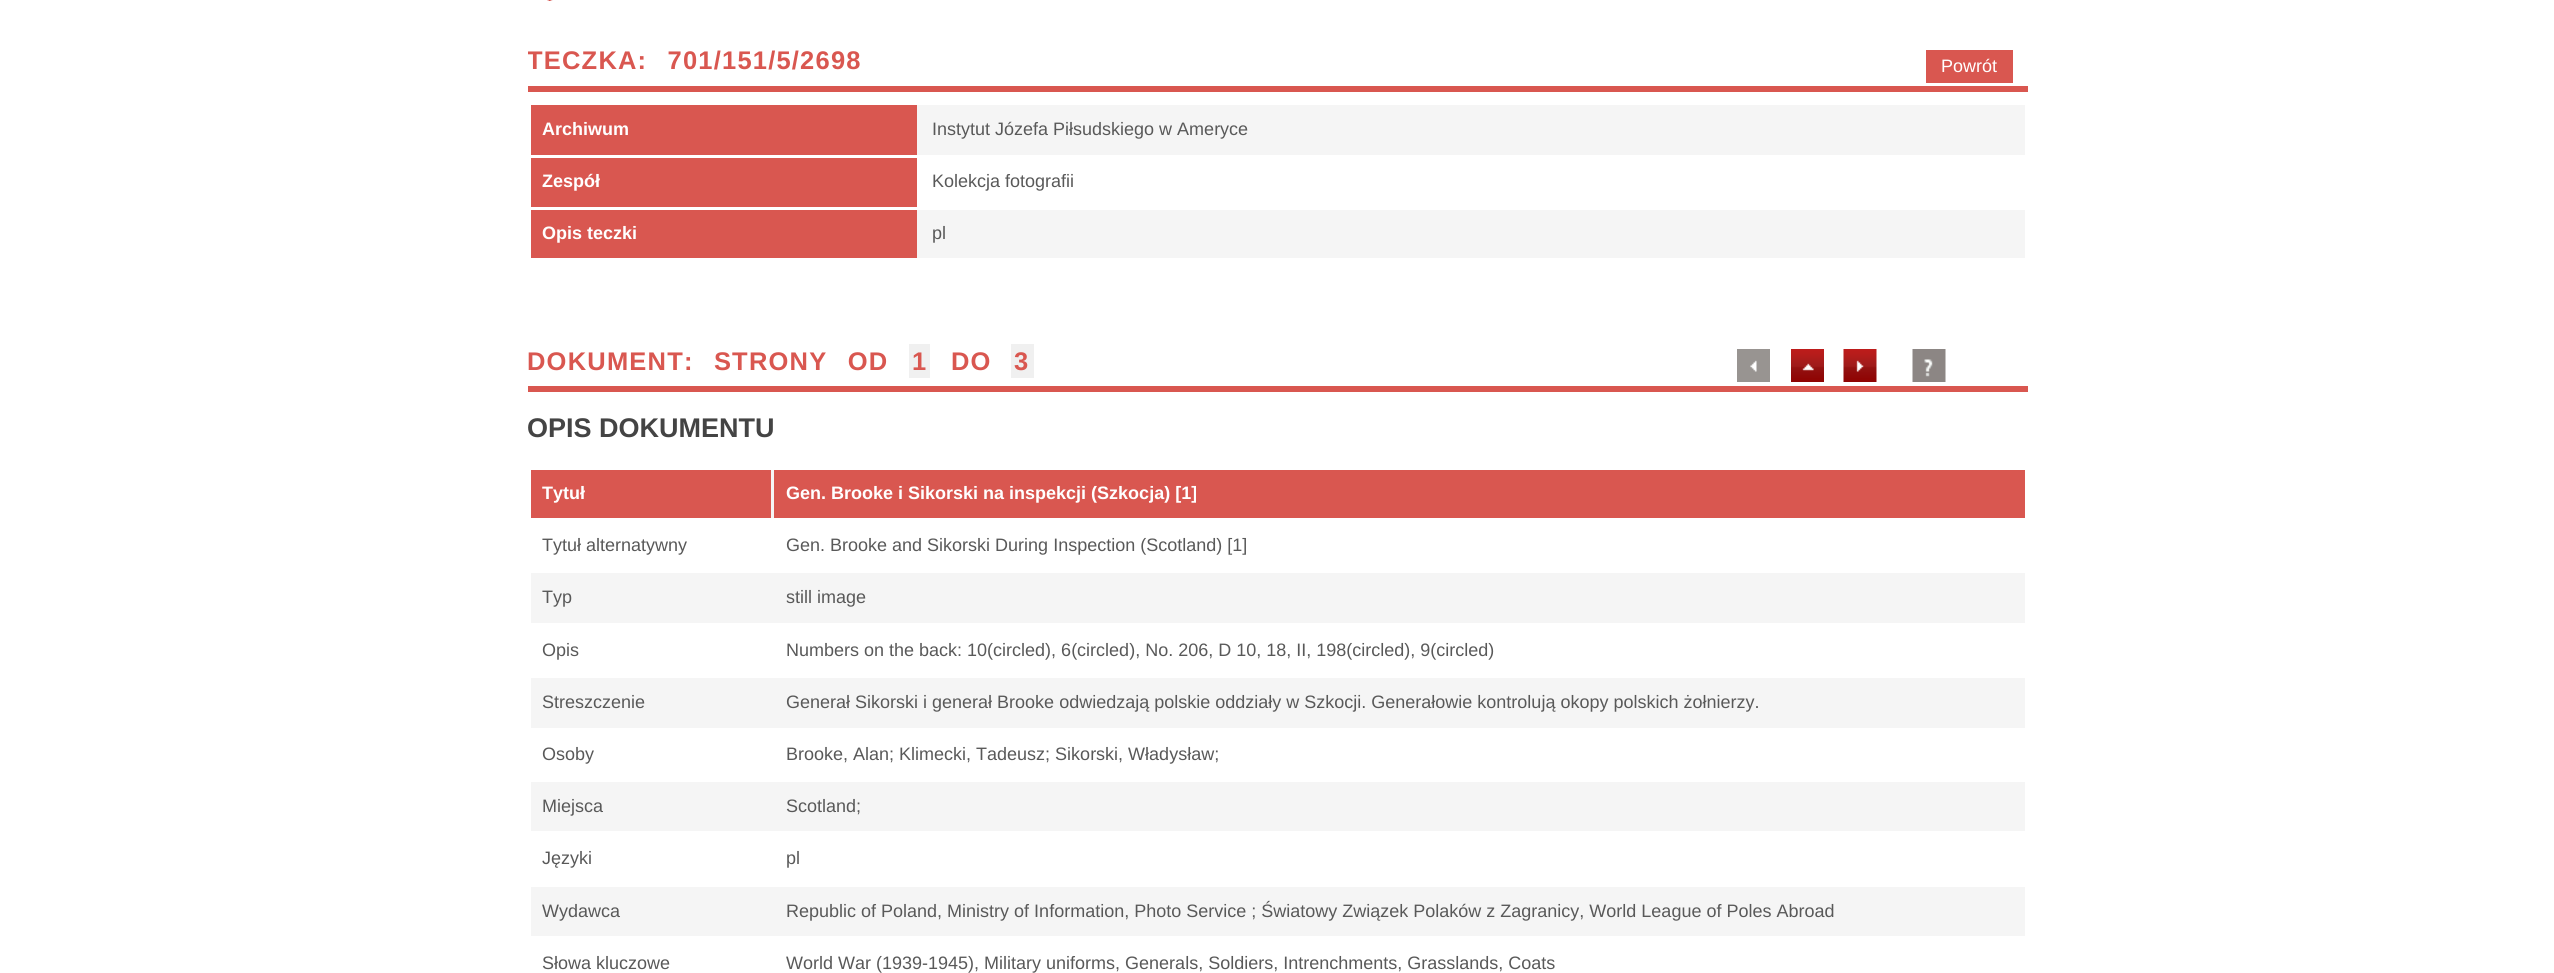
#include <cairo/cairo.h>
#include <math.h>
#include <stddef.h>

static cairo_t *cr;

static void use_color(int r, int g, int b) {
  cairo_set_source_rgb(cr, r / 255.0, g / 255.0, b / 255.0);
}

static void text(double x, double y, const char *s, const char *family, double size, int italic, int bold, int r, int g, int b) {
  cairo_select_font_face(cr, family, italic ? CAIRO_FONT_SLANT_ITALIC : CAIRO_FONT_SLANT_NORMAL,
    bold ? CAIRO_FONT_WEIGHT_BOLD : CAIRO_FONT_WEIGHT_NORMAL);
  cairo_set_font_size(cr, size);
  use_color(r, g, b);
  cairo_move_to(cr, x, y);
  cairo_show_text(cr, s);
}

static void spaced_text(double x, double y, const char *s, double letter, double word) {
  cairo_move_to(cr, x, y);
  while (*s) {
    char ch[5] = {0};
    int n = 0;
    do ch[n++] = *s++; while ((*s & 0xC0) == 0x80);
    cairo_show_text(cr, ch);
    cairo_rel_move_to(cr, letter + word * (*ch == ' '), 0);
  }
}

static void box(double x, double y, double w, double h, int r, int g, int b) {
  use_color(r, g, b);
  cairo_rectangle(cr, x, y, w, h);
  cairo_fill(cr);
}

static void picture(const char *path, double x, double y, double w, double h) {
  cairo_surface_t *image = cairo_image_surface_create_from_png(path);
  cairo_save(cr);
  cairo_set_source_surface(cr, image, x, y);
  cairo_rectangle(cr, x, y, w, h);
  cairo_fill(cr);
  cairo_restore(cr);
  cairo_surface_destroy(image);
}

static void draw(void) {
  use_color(255, 255, 255);
  cairo_paint(cr);
  picture("img_01.png", 547, 0, 6, 1);
  box(1926, 50, 87, 33, 217, 87, 80);
  box(528, 86, 1500, 6, 217, 87, 80);
  box(917, 105, 1108, 50, 245, 245, 245);
  box(531, 105, 386, 50, 217, 87, 80);
  box(531, 158, 386, 49, 217, 87, 80);
  box(917, 210, 1108, 48, 245, 245, 245);
  box(531, 210, 386, 48, 217, 87, 80);
  box(909, 344, 21, 34, 240, 240, 240);
  box(1011, 344, 23, 34, 240, 240, 240);
  picture("img_02.png", 1737, 349, 33, 33);
  picture("img_03.png", 1791, 349, 33, 33);
  picture("img_04.png", 1843, 349, 34, 33);
  picture("img_05.png", 1912, 349, 34, 33);
  box(528, 386, 1500, 6, 217, 87, 80);
  box(771, 470, 3, 48, 245, 245, 245);
  box(531, 470, 240, 48, 217, 87, 80);
  box(774, 470, 1251, 48, 217, 87, 80);
  box(531, 573, 1494, 50, 245, 245, 245);
  box(531, 678, 1494, 50, 245, 245, 245);
  box(531, 782, 1494, 49, 245, 245, 245);
  box(531, 887, 1494, 49, 245, 245, 245);
  cairo_save(cr);
  cairo_rectangle(cr, 528, 0, 1500, 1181);
  cairo_clip(cr);
  cairo_select_font_face(cr, "Liberation Sans", CAIRO_FONT_SLANT_NORMAL, CAIRO_FONT_WEIGHT_BOLD);
  cairo_set_font_size(cr, 25.5);
  use_color(217, 87, 80);
  spaced_text(527, 69, "TECZKA: 701/151/5/2698", 1.2, 12);
  cairo_restore(cr);
  text(1941, 72, "Powrót", "Liberation Sans", 18, 0, 0, 255, 255, 255);
  text(542, 135, "Archiwum", "Liberation Sans", 18, 0, 1, 255, 255, 255);
  text(932, 135, "Instytut Józefa Piłsudskiego w Ameryce", "Liberation Sans", 18, 0, 0, 89, 89, 89);
  text(542, 187, "Zespół", "Liberation Sans", 18, 0, 1, 255, 255, 255);
  text(932, 187, "Kolekcja fotografii", "Liberation Sans", 18, 0, 0, 89, 89, 89);
  text(542, 239, "Opis teczki", "Liberation Sans", 18, 0, 1, 255, 255, 255);
  text(932, 239, "pl", "Liberation Sans", 18, 0, 0, 89, 89, 89);
  cairo_select_font_face(cr, "Liberation Sans", CAIRO_FONT_SLANT_NORMAL, CAIRO_FONT_WEIGHT_BOLD);
  cairo_set_font_size(cr, 25.5);
  use_color(217, 87, 80);
  spaced_text(527, 370, "DOKUMENT: STRONY OD", 1.2, 12);
  spaced_text(912, 370, "1", 1.2, 0);
  spaced_text(951, 370, "DO", 1.2, 0);
  spaced_text(1014, 370, "3", 1.2, 0);
  text(527, 437, "OPIS DOKUMENTU", "Liberation Sans", 27, 0, 1, 68, 68, 68);
  text(542, 499, "Tytuł", "Liberation Sans", 18, 0, 1, 255, 255, 255);
  text(786, 499, "Gen. Brooke i Sikorski na inspekcji (Szkocja) [1]", "Liberation Sans", 18, 0, 1, 255, 255, 255);
  text(542, 551, "Tytuł alternatywny", "Liberation Sans", 18, 0, 0, 89, 89, 89);
  text(786, 551, "Gen. Brooke and Sikorski During Inspection (Scotland) [1]", "Liberation Sans", 18, 0, 0, 89, 89, 89);
  text(542, 603, "Typ", "Liberation Sans", 18, 0, 0, 89, 89, 89);
  text(786, 603, "still image", "Liberation Sans", 18, 0, 0, 89, 89, 89);
  text(542, 656, "Opis", "Liberation Sans", 18, 0, 0, 89, 89, 89);
  text(786, 656, "Numbers on the back: 10(circled), 6(circled), No. 206, D 10, 18, II, 198(circled), 9(circled)", "Liberation Sans", 18, 0, 0, 89, 89, 89);
  text(542, 708, "Streszczenie", "Liberation Sans", 18, 0, 0, 89, 89, 89);
  text(786, 708, "Generał Sikorski i generał Brooke odwiedzają polskie oddziały w Szkocji. Generałowie kontrolują okopy polskich żołnierzy.", "Liberation Sans", 18, 0, 0, 89, 89, 89);
  text(542, 760, "Osoby", "Liberation Sans", 18, 0, 0, 89, 89, 89);
  text(786, 760, "Brooke, Alan; Klimecki, Tadeusz; Sikorski, Władysław;", "Liberation Sans", 18, 0, 0, 89, 89, 89);
  text(542, 812, "Miejsca", "Liberation Sans", 18, 0, 0, 89, 89, 89);
  text(786, 812, "Scotland;", "Liberation Sans", 18, 0, 0, 89, 89, 89);
  text(542, 864, "Języki", "Liberation Sans", 18, 0, 0, 89, 89, 89);
  text(786, 864, "pl", "Liberation Sans", 18, 0, 0, 89, 89, 89);
  text(542, 917, "Wydawca", "Liberation Sans", 18, 0, 0, 89, 89, 89);
  text(786, 917, "Republic of Poland, Ministry of Information, Photo Service ; Światowy Związek Polaków z Zagranicy, World League of Poles Abroad", "Liberation Sans", 18, 0, 0, 89, 89, 89);
  text(542, 969, "Słowa kluczowe", "Liberation Sans", 18, 0, 0, 89, 89, 89);
  text(786, 969, "World War (1939-1945), Military uniforms, Generals, Soldiers, Intrenchments, Grasslands, Coats", "Liberation Sans", 18, 0, 0, 89, 89, 89);
}

int main(void) {
  cairo_surface_t *surface = cairo_image_surface_create(CAIRO_FORMAT_RGB24, 2554, 973);
  cr = cairo_create(surface);
  cairo_font_options_t *options = cairo_font_options_create();
  cairo_font_options_set_hint_metrics(options, CAIRO_HINT_METRICS_OFF);
  cairo_font_options_set_hint_style(options, CAIRO_HINT_STYLE_NONE);
  cairo_set_font_options(cr, options);
  cairo_set_miter_limit(cr, 4);
  draw();
  cairo_surface_write_to_png(surface, "out.png");
  cairo_font_options_destroy(options);
  cairo_destroy(cr);
  cairo_surface_destroy(surface);
  return 0;
}
